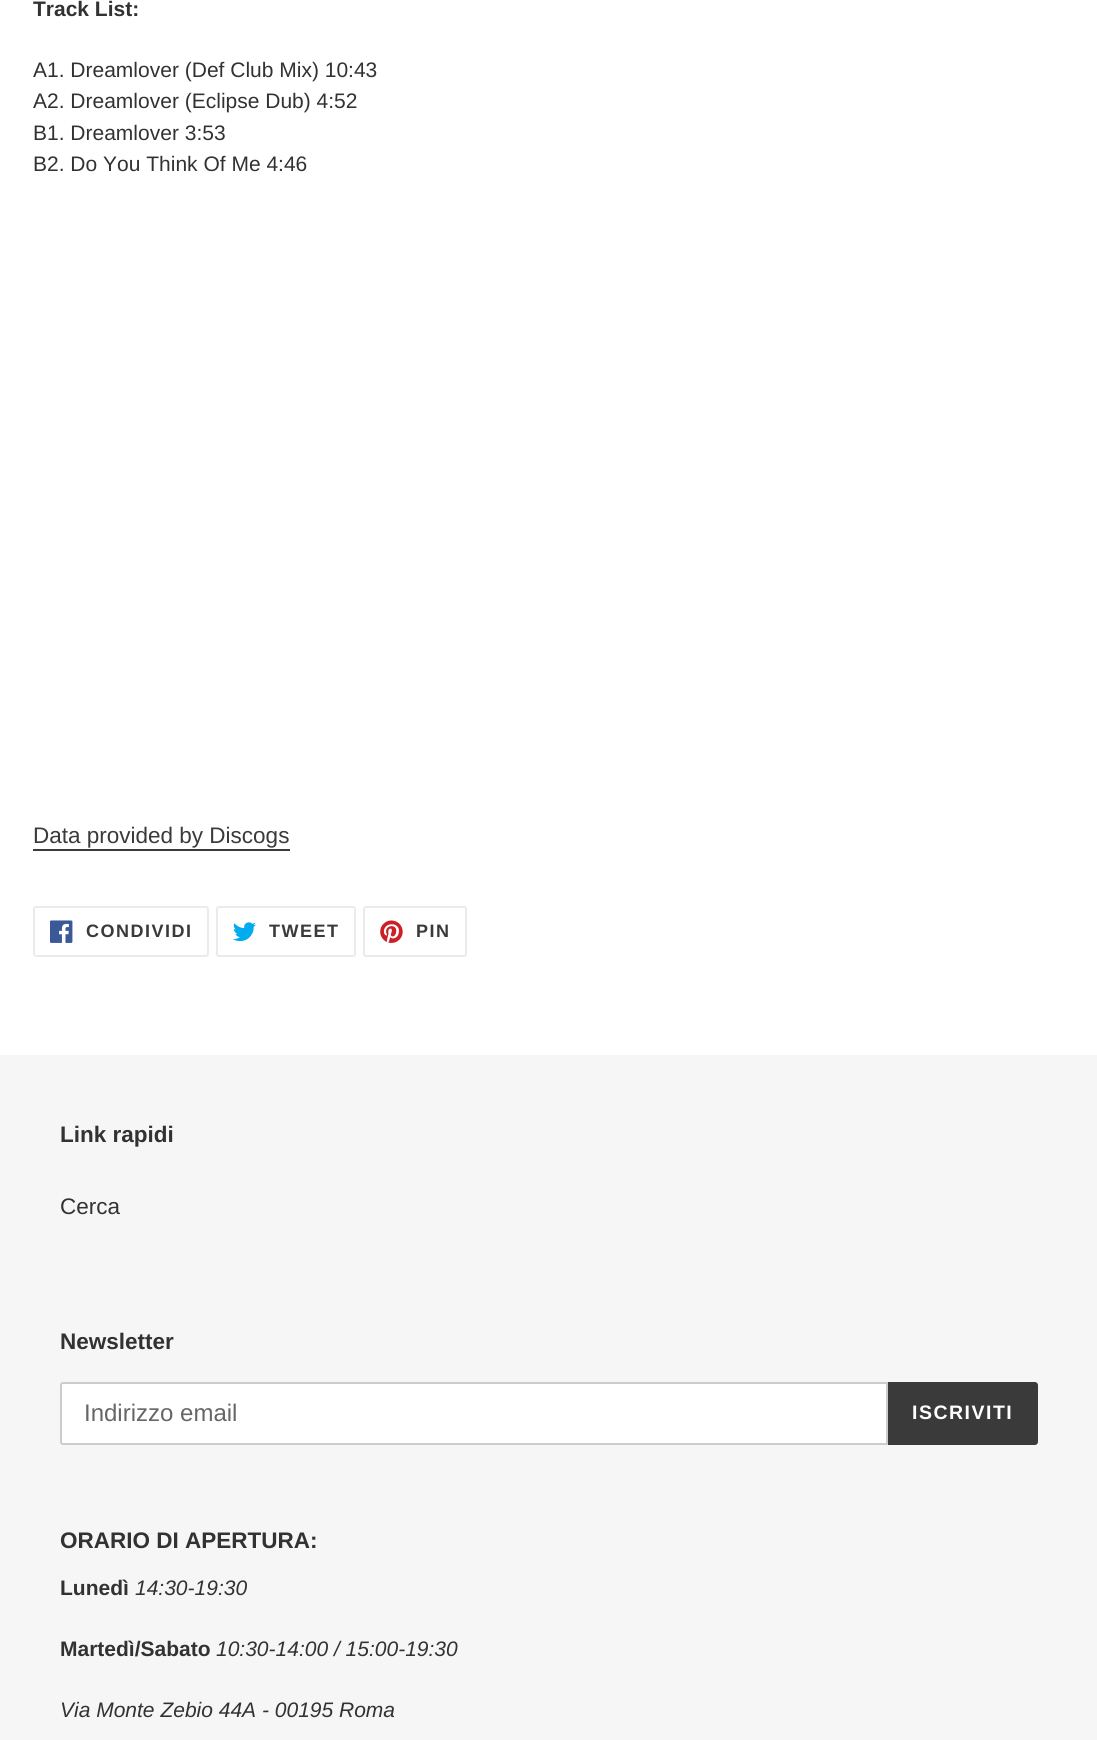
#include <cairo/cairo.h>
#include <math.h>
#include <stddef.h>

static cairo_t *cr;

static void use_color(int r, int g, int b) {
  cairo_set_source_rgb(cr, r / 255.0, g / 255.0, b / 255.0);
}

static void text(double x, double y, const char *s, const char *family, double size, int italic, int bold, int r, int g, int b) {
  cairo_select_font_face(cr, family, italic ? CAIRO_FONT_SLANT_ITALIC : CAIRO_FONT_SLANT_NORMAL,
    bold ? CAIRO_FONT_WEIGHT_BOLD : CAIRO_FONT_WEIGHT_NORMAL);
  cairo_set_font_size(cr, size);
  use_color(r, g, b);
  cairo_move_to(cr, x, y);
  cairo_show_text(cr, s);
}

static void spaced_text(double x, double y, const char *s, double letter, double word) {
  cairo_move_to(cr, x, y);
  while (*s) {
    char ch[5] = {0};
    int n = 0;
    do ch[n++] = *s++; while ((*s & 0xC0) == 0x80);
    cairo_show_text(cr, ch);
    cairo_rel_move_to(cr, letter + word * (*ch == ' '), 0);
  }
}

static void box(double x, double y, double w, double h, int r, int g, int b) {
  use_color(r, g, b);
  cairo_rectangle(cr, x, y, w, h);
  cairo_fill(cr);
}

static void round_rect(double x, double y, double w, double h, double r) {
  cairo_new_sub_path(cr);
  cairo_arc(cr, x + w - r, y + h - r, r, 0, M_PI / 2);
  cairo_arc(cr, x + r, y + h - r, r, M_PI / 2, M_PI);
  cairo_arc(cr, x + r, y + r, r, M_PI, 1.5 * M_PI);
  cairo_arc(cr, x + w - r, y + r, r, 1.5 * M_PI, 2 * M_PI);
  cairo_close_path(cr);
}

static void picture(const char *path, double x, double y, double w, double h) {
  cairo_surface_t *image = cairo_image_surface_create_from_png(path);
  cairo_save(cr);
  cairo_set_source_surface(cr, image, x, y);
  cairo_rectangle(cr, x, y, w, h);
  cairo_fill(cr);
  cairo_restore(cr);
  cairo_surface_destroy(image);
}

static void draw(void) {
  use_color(255, 255, 255);
  cairo_paint(cr);
  box(33, 849, 257, 2, 58, 58, 58);
  round_rect(34, 907, 174, 49, 2);
  use_color(235, 235, 235);
  cairo_stroke(cr);
  picture("img_01.png", 50, 920, 23, 23);
  round_rect(217, 907, 138, 49, 2);
  cairo_stroke(cr);
  picture("img_02.png", 233, 922, 23, 20);
  round_rect(364, 907, 102, 49, 2);
  cairo_stroke(cr);
  picture("img_03.png", 380, 920, 23, 23);
  box(0, 1055, 1097, 685, 246, 246, 246);
  use_color(255, 255, 255);
  cairo_new_path(cr);
  cairo_move_to(cr, 63, 1383);
  cairo_line_to(cr, 887, 1383);
  cairo_line_to(cr, 887, 1444);
  cairo_line_to(cr, 63, 1444);
  cairo_curve_to(cr, 62, 1444, 61, 1443, 61, 1442);
  cairo_line_to(cr, 61, 1385);
  cairo_curve_to(cr, 61, 1384, 62, 1383, 63, 1383);
  cairo_close_path(cr);
  cairo_fill_preserve(cr);
  use_color(204, 204, 204);
  cairo_stroke(cr);
  use_color(58, 58, 58);
  cairo_new_path(cr);
  cairo_move_to(cr, 888, 1382);
  cairo_line_to(cr, 1035, 1382);
  cairo_curve_to(cr, 1036.5, 1382, 1038, 1383.5, 1038, 1385);
  cairo_line_to(cr, 1038, 1442);
  cairo_curve_to(cr, 1038, 1443.5, 1036.5, 1445, 1035, 1445);
  cairo_line_to(cr, 888, 1445);
  cairo_close_path(cr);
  cairo_fill(cr);
  text(33, 16, "Track List:", "Liberation Sans", 21, 0, 1, 51, 50, 50);
  text(33, 77, "A1. Dreamlover (Def Club Mix) 10:43", "Liberation Sans", 21, 0, 0, 51, 50, 50);
  text(33, 108, "A2. Dreamlover (Eclipse Dub) 4:52", "Liberation Sans", 21, 0, 0, 51, 50, 50);
  text(33, 140, "B1. Dreamlover 3:53", "Liberation Sans", 21, 0, 0, 51, 50, 50);
  text(33, 171, "B2. Do You Think Of Me 4:46", "Liberation Sans", 21, 0, 0, 51, 50, 50);
  text(33, 843, "Data provided by Discogs", "Liberation Sans", 22.5, 0, 0, 58, 58, 58);
  cairo_select_font_face(cr, "Liberation Sans", CAIRO_FONT_SLANT_NORMAL, CAIRO_FONT_WEIGHT_BOLD);
  cairo_set_font_size(cr, 18);
  spaced_text(86, 937, "CONDIVIDI", 1.5, 0);
  spaced_text(269, 937, "TWEET", 1.5, 0);
  spaced_text(416, 937, "PIN", 1.5, 0);
  text(60, 1142, "Link rapidi", "Liberation Sans", 22.5, 0, 1, 51, 50, 50);
  text(60, 1214, "Cerca", "Liberation Sans", 22.5, 0, 0, 51, 50, 50);
  text(60, 1349, "Newsletter", "Liberation Sans", 22.5, 0, 1, 51, 50, 50);
  text(84, 1421, "Indirizzo email", "Liberation Sans", 24, 0, 0, 102, 102, 102);
  cairo_select_font_face(cr, "Liberation Sans", CAIRO_FONT_SLANT_NORMAL, CAIRO_FONT_WEIGHT_BOLD);
  cairo_set_font_size(cr, 19.5);
  use_color(255, 255, 255);
  spaced_text(912, 1419, "ISCRIVITI", 1.5, 0);
  text(60, 1548, "ORARIO DI APERTURA:", "Liberation Sans", 22.5, 0, 1, 51, 50, 50);
  text(60, 1595, "Lunedì", "Liberation Sans", 21, 0, 1, 51, 50, 50);
  text(135, 1595, "14:30-19:30", "Liberation Sans", 21, 1, 0, 51, 50, 50);
  text(60, 1656, "Martedì/Sabato", "Liberation Sans", 21, 0, 1, 51, 50, 50);
  text(216, 1656, "10:30-14:00 / 15:00-19:30", "Liberation Sans", 21, 1, 0, 51, 50, 50);
  text(60, 1717, "Via Monte Zebio 44A - 00195 Roma", "Liberation Sans", 21, 1, 0, 51, 50, 50);
}

int main(void) {
  cairo_surface_t *surface = cairo_image_surface_create(CAIRO_FORMAT_RGB24, 1097, 1740);
  cr = cairo_create(surface);
  cairo_font_options_t *options = cairo_font_options_create();
  cairo_font_options_set_hint_metrics(options, CAIRO_HINT_METRICS_OFF);
  cairo_font_options_set_hint_style(options, CAIRO_HINT_STYLE_NONE);
  cairo_set_font_options(cr, options);
  cairo_set_miter_limit(cr, 4);
  draw();
  cairo_surface_write_to_png(surface, "out.png");
  cairo_font_options_destroy(options);
  cairo_destroy(cr);
  cairo_surface_destroy(surface);
  return 0;
}
